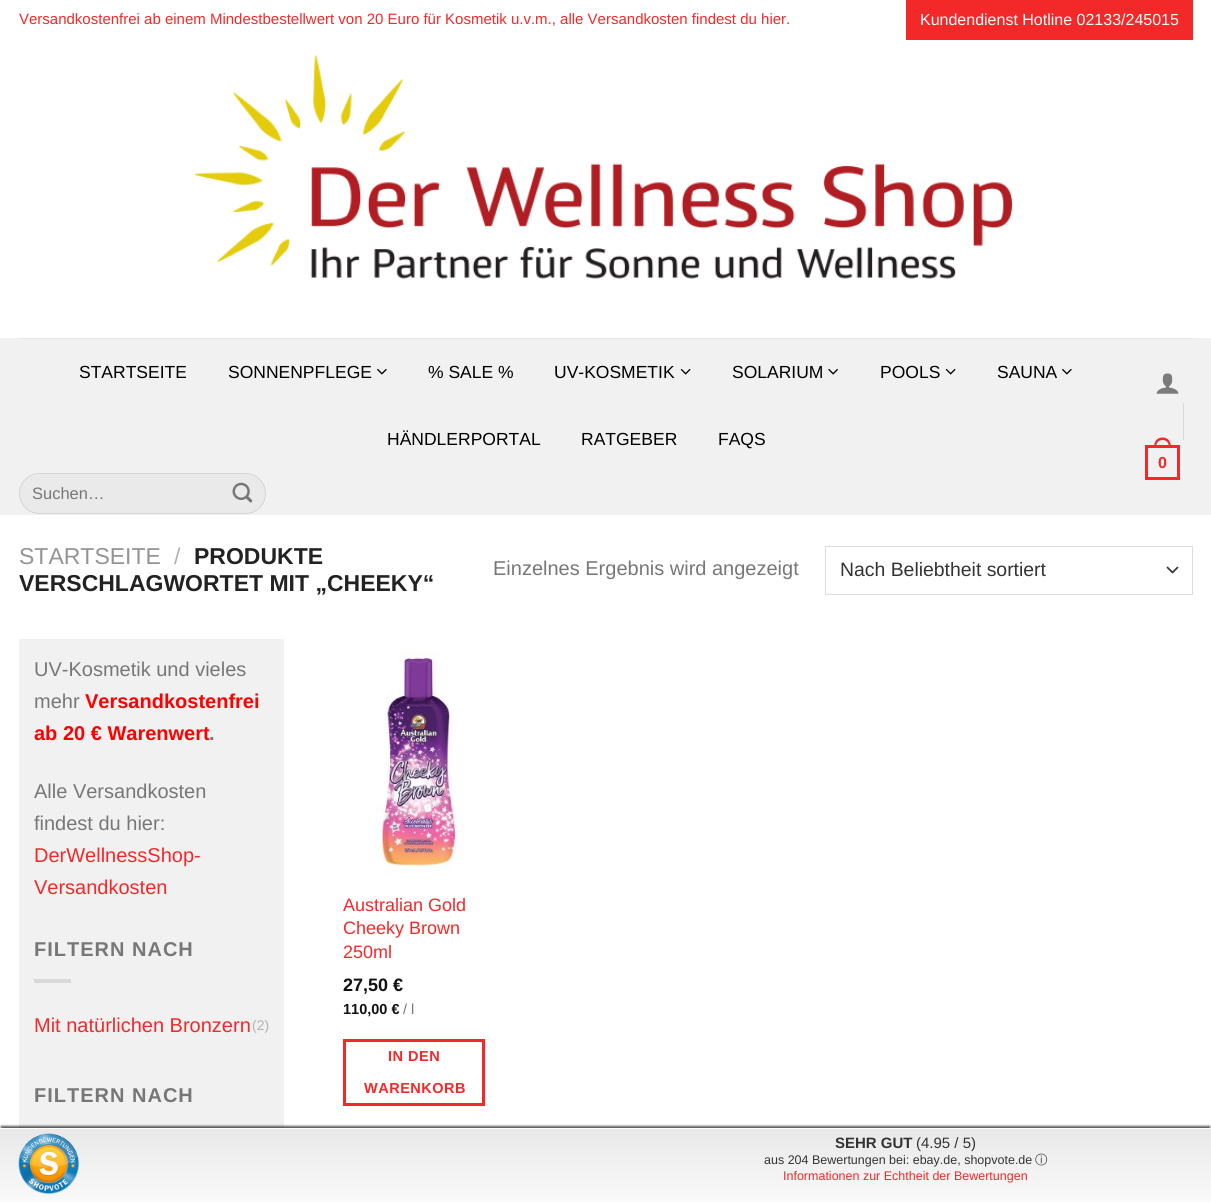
#include <cairo/cairo.h>
#include <math.h>
#include <stddef.h>

static cairo_t *cr;

static void use_color(int r, int g, int b) {
  cairo_set_source_rgb(cr, r / 255.0, g / 255.0, b / 255.0);
}

static void text(double x, double y, const char *s, const char *family, double size, int italic, int bold, int r, int g, int b) {
  cairo_select_font_face(cr, family, italic ? CAIRO_FONT_SLANT_ITALIC : CAIRO_FONT_SLANT_NORMAL,
    bold ? CAIRO_FONT_WEIGHT_BOLD : CAIRO_FONT_WEIGHT_NORMAL);
  cairo_set_font_size(cr, size);
  use_color(r, g, b);
  cairo_move_to(cr, x, y);
  cairo_show_text(cr, s);
}

static void spaced_text(double x, double y, const char *s, double letter, double word) {
  cairo_move_to(cr, x, y);
  while (*s) {
    char ch[5] = {0};
    int n = 0;
    do ch[n++] = *s++; while ((*s & 0xC0) == 0x80);
    cairo_show_text(cr, ch);
    cairo_rel_move_to(cr, letter + word * (*ch == ' '), 0);
  }
}

static void box(double x, double y, double w, double h, int r, int g, int b) {
  use_color(r, g, b);
  cairo_rectangle(cr, x, y, w, h);
  cairo_fill(cr);
}

static void round_rect(double x, double y, double w, double h, double r) {
  cairo_new_sub_path(cr);
  cairo_arc(cr, x + w - r, y + h - r, r, 0, M_PI / 2);
  cairo_arc(cr, x + r, y + h - r, r, M_PI / 2, M_PI);
  cairo_arc(cr, x + r, y + r, r, M_PI, 1.5 * M_PI);
  cairo_arc(cr, x + w - r, y + r, r, 1.5 * M_PI, 2 * M_PI);
  cairo_close_path(cr);
}

static void shadow(double x, double y, double w, double h, double r, double blur, double alpha) {
  cairo_push_group_with_content(cr, CAIRO_CONTENT_ALPHA);
  cairo_set_operator(cr, CAIRO_OPERATOR_SOURCE);
  for (int i = 15; i >= -15 && fmin(w, h) + blur * i / 3 > 0; i -= 2) {
    double e = blur * i / 6;
    cairo_set_source_rgba(cr, 0, 0, 0, alpha * erfc((i - 1) / 8.5) / 2);
    round_rect(x - e, y - e, w + 2 * e, h + 2 * e, fmax(0, fmin(r + e + blur * .6, fmin(w, h) / 2 + e)));
    cairo_fill(cr);
  }
  cairo_pattern_t *soft = cairo_pop_group(cr);
  cairo_mask(cr, soft);
  cairo_pattern_destroy(soft);
}

static void picture(const char *path, double x, double y, double w, double h) {
  cairo_surface_t *image = cairo_image_surface_create_from_png(path);
  cairo_save(cr);
  cairo_set_source_surface(cr, image, x, y);
  cairo_rectangle(cr, x, y, w, h);
  cairo_fill(cr);
  cairo_restore(cr);
  cairo_surface_destroy(image);
}

static void draw(void) {
  cairo_pattern_t *gradient;
  use_color(255, 255, 255);
  cairo_paint(cr);
  box(906, 0, 287, 40, 243, 41, 41);
  picture("img_01.png", 195, 55, 818, 224);
  box(0, 338, 1211, 177, 241, 241, 241);
  box(19, 338, 1174, 1, 229, 229, 229);
  picture("img_02.png", 377, 368, 10, 7);
  picture("img_03.png", 680, 368, 11, 7);
  picture("img_04.png", 828, 368, 10, 7);
  picture("img_03.png", 945, 368, 11, 7);
  picture("img_02.png", 1062, 368, 10, 7);
  use_color(234, 234, 234);
  round_rect(19, 473, 247, 41, 20.5);
  cairo_fill(cr);
  round_rect(19.5, 473.5, 246, 40, 20);
  cairo_set_source_rgba(cr, 0, 0, 0, 0.09);
  cairo_set_line_width(cr, 1);
  cairo_stroke(cr);
  picture("img_05.png", 232, 482, 21, 21);
  picture("img_06.png", 1156, 373, 23, 21);
  box(1183, 403, 1, 37, 217, 217, 217);
  cairo_rectangle(cr, 1146.5, 446.5, 32, 32);
  use_color(243, 41, 41);
  cairo_set_line_width(cr, 3);
  cairo_stroke(cr);
  cairo_set_fill_rule(cr, CAIRO_FILL_RULE_EVEN_ODD);
  cairo_new_path(cr);
  cairo_move_to(cr, 1162.5, 437.5);
  cairo_curve_to(cr, 1168.5, 437.5, 1171, 442, 1171, 447.5);
  cairo_line_to(cr, 1154, 447.5);
  cairo_curve_to(cr, 1154, 442, 1156.5, 437.5, 1162.5, 437.5);
  cairo_close_path(cr);
  cairo_move_to(cr, 1162.5, 440);
  cairo_curve_to(cr, 1167, 440, 1169, 443.5, 1169, 447.5);
  cairo_line_to(cr, 1156, 447.5);
  cairo_curve_to(cr, 1156, 443.5, 1158, 440, 1162.5, 440);
  cairo_close_path(cr);
  cairo_fill(cr);
  cairo_new_path(cr);
  cairo_move_to(cr, 1167.5, 567.5);
  cairo_line_to(cr, 1172.5, 572.5);
  cairo_line_to(cr, 1177.5, 567.5);
  use_color(51, 51, 51);
  cairo_set_line_width(cr, 1.7);
  cairo_set_line_cap(cr, CAIRO_LINE_CAP_ROUND);
  cairo_set_line_join(cr, CAIRO_LINE_JOIN_ROUND);
  cairo_stroke(cr);
  cairo_rectangle(cr, 825.5, 546.5, 367, 48);
  use_color(221, 221, 221);
  cairo_set_line_width(cr, 1);
  cairo_set_line_cap(cr, CAIRO_LINE_CAP_BUTT);
  cairo_set_line_join(cr, CAIRO_LINE_JOIN_MITER);
  cairo_stroke(cr);
  box(19, 639, 265, 489, 241, 241, 241);
  box(34, 979, 37, 4, 217, 217, 217);
  picture("img_07.png", 373, 652, 91, 219);
  cairo_rectangle(cr, 344.5, 1040.5, 139, 64);
  use_color(243, 41, 41);
  cairo_set_line_width(cr, 3);
  cairo_stroke(cr);
  use_color(0, 0, 0);
  shadow(1, 1126, 1209, 73, 0, 1, 0.65);
  gradient = cairo_pattern_create_linear(606, 1129, 606, 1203);
  cairo_pattern_add_color_stop_rgba(gradient, 0, 0.941, 0.941, 0.941, 1);
  cairo_pattern_add_color_stop_rgba(gradient, 0, 0.91, 0.91, 0.91, 1);
  cairo_pattern_add_color_stop_rgba(gradient, 1, 0.98, 0.98, 0.98, 1);
  cairo_set_source(cr, gradient);
  cairo_pattern_destroy(gradient);
  cairo_rectangle(cr, 0, 1129, 1211, 73);
  cairo_fill(cr);
  box(0, 1128, 1211, 1, 255, 255, 255);
  picture("img_08.png", 18, 1133, 61, 61);
  text(19, 24, "Versandkostenfrei ab einem Mindestbestellwert von 20 Euro für Kosmetik u.v.m., alle Versandkosten findest du hier.", "Liberation Sans", 15, 0, 0, 243, 41, 41);
  text(920, 25, "Kundendienst Hotline 02133/245015", "Liberation Sans", 16, 0, 0, 255, 255, 255);
  text(79, 378, "STARTSEITE", "Liberation Sans", 17.5, 0, 0, 0, 0, 0);
  text(228, 378, "SONNENPFLEGE", "Liberation Sans", 17.5, 0, 0, 0, 0, 0);
  text(428, 378, "% SALE %", "Liberation Sans", 17.5, 0, 0, 0, 0, 0);
  text(554, 378, "UV-KOSMETIK", "Liberation Sans", 17.5, 0, 0, 0, 0, 0);
  text(732, 378, "SOLARIUM", "Liberation Sans", 17.5, 0, 0, 0, 0, 0);
  text(880, 378, "POOLS", "Liberation Sans", 17.5, 0, 0, 0, 0, 0);
  text(997, 378, "SAUNA", "Liberation Sans", 17.5, 0, 0, 0, 0, 0);
  text(387, 445, "HÄNDLERPORTAL", "Liberation Sans", 17.5, 0, 0, 0, 0, 0);
  text(581, 445, "RATGEBER", "Liberation Sans", 17.5, 0, 0, 0, 0, 0);
  text(718, 445, "FAQS", "Liberation Sans", 17.5, 0, 0, 0, 0, 0);
  text(32, 499, "Suchen…", "Liberation Sans", 16.5, 0, 0, 119, 119, 119);
  text(1158, 468, "0", "Liberation Sans", 16, 0, 1, 243, 41, 41);
  text(19, 564, "STARTSEITE", "Liberation Sans", 23, 0, 0, 148, 148, 148);
  text(174, 564, "/", "Liberation Sans", 23, 0, 0, 178, 178, 178);
  text(194, 564, "PRODUKTE", "Liberation Sans", 23, 0, 1, 34, 34, 34);
  text(19, 591, "VERSCHLAGWORTET MIT „CHEEKY“", "Liberation Sans", 23, 0, 1, 34, 34, 34);
  text(493, 575, "Einzelnes Ergebnis wird angezeigt", "Liberation Sans", 20, 0, 0, 119, 119, 119);
  text(840, 576, "Nach Beliebtheit sortiert", "Liberation Sans", 19.4, 0, 0, 51, 51, 51);
  text(34, 676, "UV-Kosmetik und vieles", "Liberation Sans", 20, 0, 0, 119, 119, 119);
  text(34, 708, "mehr", "Liberation Sans", 20, 0, 0, 119, 119, 119);
  text(85, 708, "Versandkostenfrei", "Liberation Sans", 20, 0, 1, 255, 0, 0);
  text(34, 740, "ab 20 € Warenwert", "Liberation Sans", 20, 0, 1, 255, 0, 0);
  text(209, 740, ".", "Liberation Sans", 20, 0, 1, 119, 119, 119);
  text(34, 798, "Alle Versandkosten", "Liberation Sans", 20, 0, 0, 119, 119, 119);
  text(34, 830, "findest du hier:", "Liberation Sans", 20, 0, 0, 119, 119, 119);
  text(34, 862, "DerWellnessShop-", "Liberation Sans", 20, 0, 0, 243, 41, 41);
  text(34, 894, "Versandkosten", "Liberation Sans", 20, 0, 0, 243, 41, 41);
  cairo_select_font_face(cr, "Liberation Sans", CAIRO_FONT_SLANT_NORMAL, CAIRO_FONT_WEIGHT_BOLD);
  use_color(119, 119, 119);
  spaced_text(34, 956, "FILTERN NACH", 1, 0);
  text(34, 1032, "Mit natürlichen Bronzern", "Liberation Sans", 20, 0, 0, 243, 41, 41);
  text(252, 1030, "(2)", "Liberation Sans", 14, 0, 0, 178, 178, 178);
  cairo_select_font_face(cr, "Liberation Sans", CAIRO_FONT_SLANT_NORMAL, CAIRO_FONT_WEIGHT_BOLD);
  cairo_set_font_size(cr, 20);
  use_color(119, 119, 119);
  spaced_text(34, 1102, "FILTERN NACH", 1, 0);
  text(343, 911, "Australian Gold", "Liberation Sans", 18, 0, 0, 243, 41, 41);
  text(343, 934, "Cheeky Brown", "Liberation Sans", 18, 0, 0, 243, 41, 41);
  text(343, 958, "250ml", "Liberation Sans", 18, 0, 0, 243, 41, 41);
  text(343, 991, "27,50 €", "Liberation Sans", 18, 0, 1, 17, 17, 17);
  text(343, 1014, "110,00 €", "Liberation Sans", 14.5, 0, 1, 17, 17, 17);
  text(403, 1014, "/ l", "Liberation Sans", 14.5, 0, 0, 119, 119, 119);
  cairo_select_font_face(cr, "Liberation Sans", CAIRO_FONT_SLANT_NORMAL, CAIRO_FONT_WEIGHT_BOLD);
  use_color(243, 41, 41);
  spaced_text(388, 1061, "IN DEN", 0.5, 0);
  spaced_text(364, 1093, "WARENKORB", 0.5, 0);
  text(835, 1148, "SEHR GUT", "Liberation Sans", 15, 0, 1, 51, 51, 51);
  text(916, 1148, "(4.95 / 5)", "Liberation Sans", 15, 0, 0, 51, 51, 51);
  text(764, 1164, "aus 204 Bewertungen bei: ebay.de, shopvote.de", "Liberation Sans", 12.5, 0, 0, 51, 51, 51);
  text(1035, 1164, "ⓘ", "WenQuanYi Zen Hei Medium", 12.5, 0, 0, 51, 51, 51);
  text(783, 1180, "Informationen zur Echtheit der Bewertungen", "Liberation Sans", 12.5, 0, 0, 243, 41, 41);
}

int main(void) {
  cairo_surface_t *surface = cairo_image_surface_create(CAIRO_FORMAT_RGB24, 1211, 1202);
  cr = cairo_create(surface);
  cairo_font_options_t *options = cairo_font_options_create();
  cairo_font_options_set_hint_metrics(options, CAIRO_HINT_METRICS_OFF);
  cairo_font_options_set_hint_style(options, CAIRO_HINT_STYLE_NONE);
  cairo_set_font_options(cr, options);
  cairo_set_miter_limit(cr, 4);
  draw();
  cairo_surface_write_to_png(surface, "out.png");
  cairo_font_options_destroy(options);
  cairo_destroy(cr);
  cairo_surface_destroy(surface);
  return 0;
}
